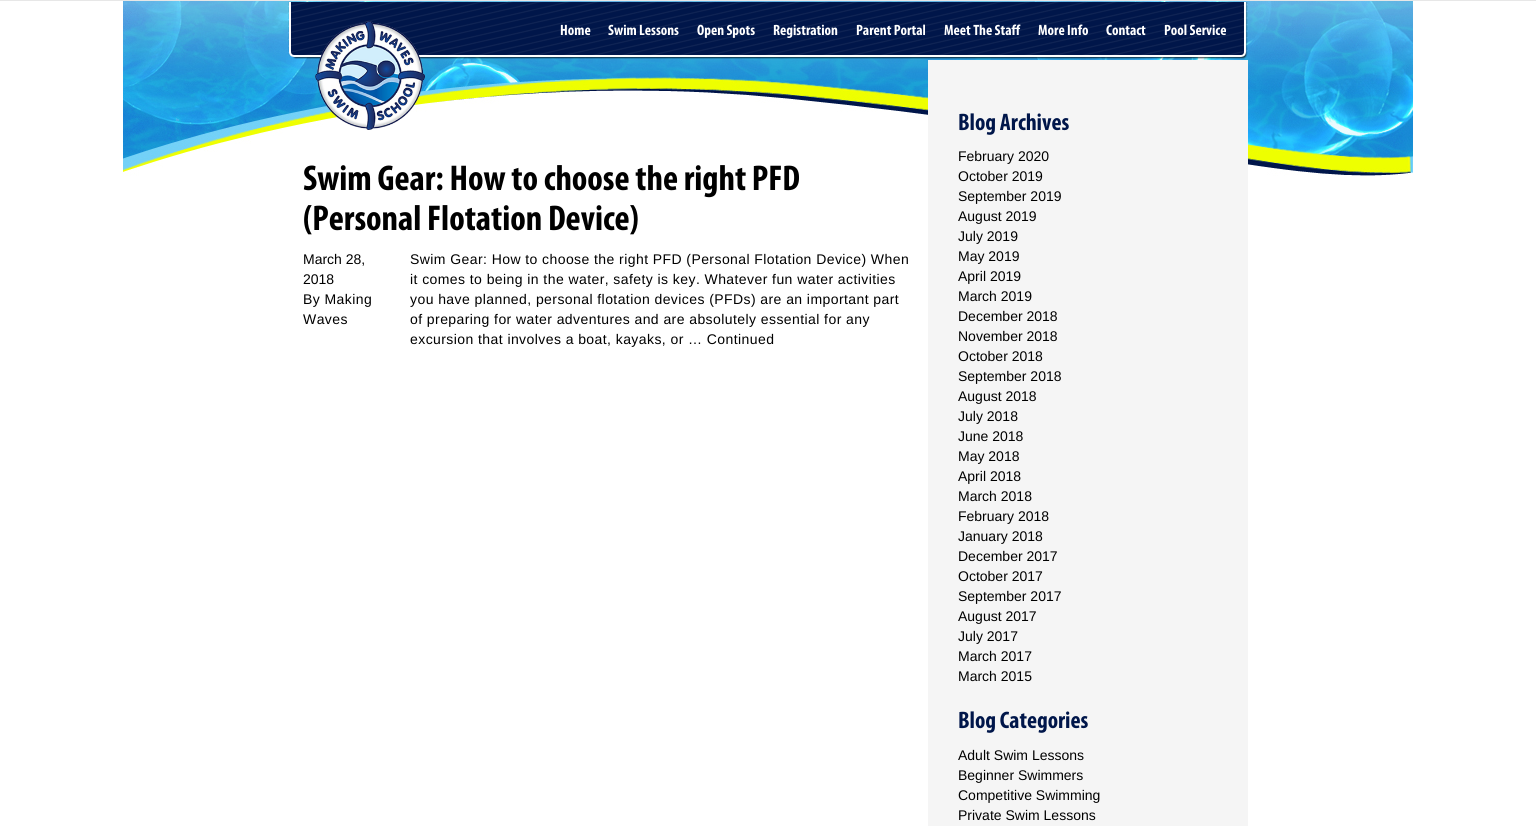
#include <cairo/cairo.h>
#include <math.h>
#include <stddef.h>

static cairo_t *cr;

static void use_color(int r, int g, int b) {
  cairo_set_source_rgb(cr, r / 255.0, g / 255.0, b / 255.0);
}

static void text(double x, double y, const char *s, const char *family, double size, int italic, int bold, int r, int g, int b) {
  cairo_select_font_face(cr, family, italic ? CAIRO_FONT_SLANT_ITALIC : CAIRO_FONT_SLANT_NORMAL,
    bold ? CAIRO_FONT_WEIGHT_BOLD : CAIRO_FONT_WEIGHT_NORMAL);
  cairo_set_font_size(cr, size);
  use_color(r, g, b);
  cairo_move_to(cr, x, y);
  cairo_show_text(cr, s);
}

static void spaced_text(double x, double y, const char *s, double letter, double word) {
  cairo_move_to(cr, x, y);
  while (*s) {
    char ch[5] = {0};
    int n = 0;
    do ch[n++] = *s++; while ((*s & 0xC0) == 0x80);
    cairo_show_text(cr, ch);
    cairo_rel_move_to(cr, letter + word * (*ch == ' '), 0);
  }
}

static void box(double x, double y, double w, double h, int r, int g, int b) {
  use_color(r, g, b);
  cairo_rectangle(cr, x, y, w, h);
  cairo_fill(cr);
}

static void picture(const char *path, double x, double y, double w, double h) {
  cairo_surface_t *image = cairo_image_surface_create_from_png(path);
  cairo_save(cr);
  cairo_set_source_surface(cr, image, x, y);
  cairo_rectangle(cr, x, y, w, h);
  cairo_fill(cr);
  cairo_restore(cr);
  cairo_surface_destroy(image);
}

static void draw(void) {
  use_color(255, 255, 255);
  cairo_paint(cr);
  picture("img_01.png", 123, 1, 1290, 175);
  box(0, 0, 1536, 1, 231, 231, 231);
  picture("img_03.png", 288, 2, 960, 57);
  picture("img_02.png", 315, 21, 110, 109);
  box(928, 60, 320, 766, 245, 245, 245);
  text(560, 35, "Home", "Myriad", 15, 0, 1, 255, 255, 255);
  text(608, 35, "Swim Lessons", "Myriad", 15, 0, 1, 255, 255, 255);
  text(697, 35, "Open Spots", "Myriad", 15, 0, 1, 255, 255, 255);
  text(773, 35, "Registration", "Myriad", 15, 0, 1, 255, 255, 255);
  text(856, 35, "Parent Portal", "Myriad", 15, 0, 1, 255, 255, 255);
  text(944, 35, "Meet The Staff", "Myriad", 15, 0, 1, 255, 255, 255);
  text(1038, 35, "More Info", "Myriad", 15, 0, 1, 255, 255, 255);
  text(1106, 35, "Contact", "Myriad", 15, 0, 1, 255, 255, 255);
  text(1164, 35, "Pool Service", "Myriad", 15, 0, 1, 255, 255, 255);
  text(303, 190, "Swim Gear: How to choose the right PFD", "Myriad", 36, 0, 1, 0, 0, 0);
  text(303, 230, "(Personal Flotation Device)", "Myriad", 36, 0, 1, 0, 0, 0);
  text(303, 264, "March 28,", "Liberation Sans", 14, 0, 0, 0, 0, 0);
  text(303, 284, "2018", "Liberation Sans", 14, 0, 0, 0, 0, 0);
  spaced_text(303, 304, "By Making", 0.42, 0);
  spaced_text(303, 324, "Waves", 0.42, 0);
  spaced_text(410, 264, "Swim Gear: How to choose the right PFD (Personal Flotation Device) When", 0.42, 0);
  spaced_text(410, 284, "it comes to being in the water, safety is key. Whatever fun water activities", 0.42, 0);
  spaced_text(410, 304, "you have planned, personal flotation devices (PFDs) are an important part", 0.42, 0);
  spaced_text(410, 324, "of preparing for water adventures and are absolutely essential for any", 0.42, 0);
  spaced_text(410, 344, "excursion that involves a boat, kayaks, or … Continued", 0.42, 0);
  text(958, 130, "Blog Archives", "Myriad", 24, 0, 1, 0, 22, 74);
  text(958, 161, "February 2020", "Liberation Sans", 14, 0, 0, 0, 0, 0);
  text(958, 181, "October 2019", "Liberation Sans", 14, 0, 0, 0, 0, 0);
  text(958, 201, "September 2019", "Liberation Sans", 14, 0, 0, 0, 0, 0);
  text(958, 221, "August 2019", "Liberation Sans", 14, 0, 0, 0, 0, 0);
  text(958, 241, "July 2019", "Liberation Sans", 14, 0, 0, 0, 0, 0);
  text(958, 261, "May 2019", "Liberation Sans", 14, 0, 0, 0, 0, 0);
  text(958, 281, "April 2019", "Liberation Sans", 14, 0, 0, 0, 0, 0);
  text(958, 301, "March 2019", "Liberation Sans", 14, 0, 0, 0, 0, 0);
  text(958, 321, "December 2018", "Liberation Sans", 14, 0, 0, 0, 0, 0);
  text(958, 341, "November 2018", "Liberation Sans", 14, 0, 0, 0, 0, 0);
  text(958, 361, "October 2018", "Liberation Sans", 14, 0, 0, 0, 0, 0);
  text(958, 381, "September 2018", "Liberation Sans", 14, 0, 0, 0, 0, 0);
  text(958, 401, "August 2018", "Liberation Sans", 14, 0, 0, 0, 0, 0);
  text(958, 421, "July 2018", "Liberation Sans", 14, 0, 0, 0, 0, 0);
  text(958, 441, "June 2018", "Liberation Sans", 14, 0, 0, 0, 0, 0);
  text(958, 461, "May 2018", "Liberation Sans", 14, 0, 0, 0, 0, 0);
  text(958, 481, "April 2018", "Liberation Sans", 14, 0, 0, 0, 0, 0);
  text(958, 501, "March 2018", "Liberation Sans", 14, 0, 0, 0, 0, 0);
  text(958, 521, "February 2018", "Liberation Sans", 14, 0, 0, 0, 0, 0);
  text(958, 541, "January 2018", "Liberation Sans", 14, 0, 0, 0, 0, 0);
  text(958, 561, "December 2017", "Liberation Sans", 14, 0, 0, 0, 0, 0);
  text(958, 581, "October 2017", "Liberation Sans", 14, 0, 0, 0, 0, 0);
  text(958, 601, "September 2017", "Liberation Sans", 14, 0, 0, 0, 0, 0);
  text(958, 621, "August 2017", "Liberation Sans", 14, 0, 0, 0, 0, 0);
  text(958, 641, "July 2017", "Liberation Sans", 14, 0, 0, 0, 0, 0);
  text(958, 661, "March 2017", "Liberation Sans", 14, 0, 0, 0, 0, 0);
  text(958, 681, "March 2015", "Liberation Sans", 14, 0, 0, 0, 0, 0);
  text(958, 728, "Blog Categories", "Myriad", 24, 0, 1, 0, 22, 74);
  text(958, 760, "Adult Swim Lessons", "Liberation Sans", 14, 0, 0, 0, 0, 0);
  text(958, 780, "Beginner Swimmers", "Liberation Sans", 14, 0, 0, 0, 0, 0);
  text(958, 800, "Competitive Swimming", "Liberation Sans", 14, 0, 0, 0, 0, 0);
  text(958, 820, "Private Swim Lessons", "Liberation Sans", 14, 0, 0, 0, 0, 0);
}

int main(void) {
  cairo_surface_t *surface = cairo_image_surface_create(CAIRO_FORMAT_RGB24, 1536, 826);
  cr = cairo_create(surface);
  cairo_font_options_t *options = cairo_font_options_create();
  cairo_font_options_set_hint_metrics(options, CAIRO_HINT_METRICS_OFF);
  cairo_font_options_set_hint_style(options, CAIRO_HINT_STYLE_NONE);
  cairo_set_font_options(cr, options);
  cairo_set_miter_limit(cr, 4);
  draw();
  cairo_surface_write_to_png(surface, "out.png");
  cairo_font_options_destroy(options);
  cairo_destroy(cr);
  cairo_surface_destroy(surface);
  return 0;
}
